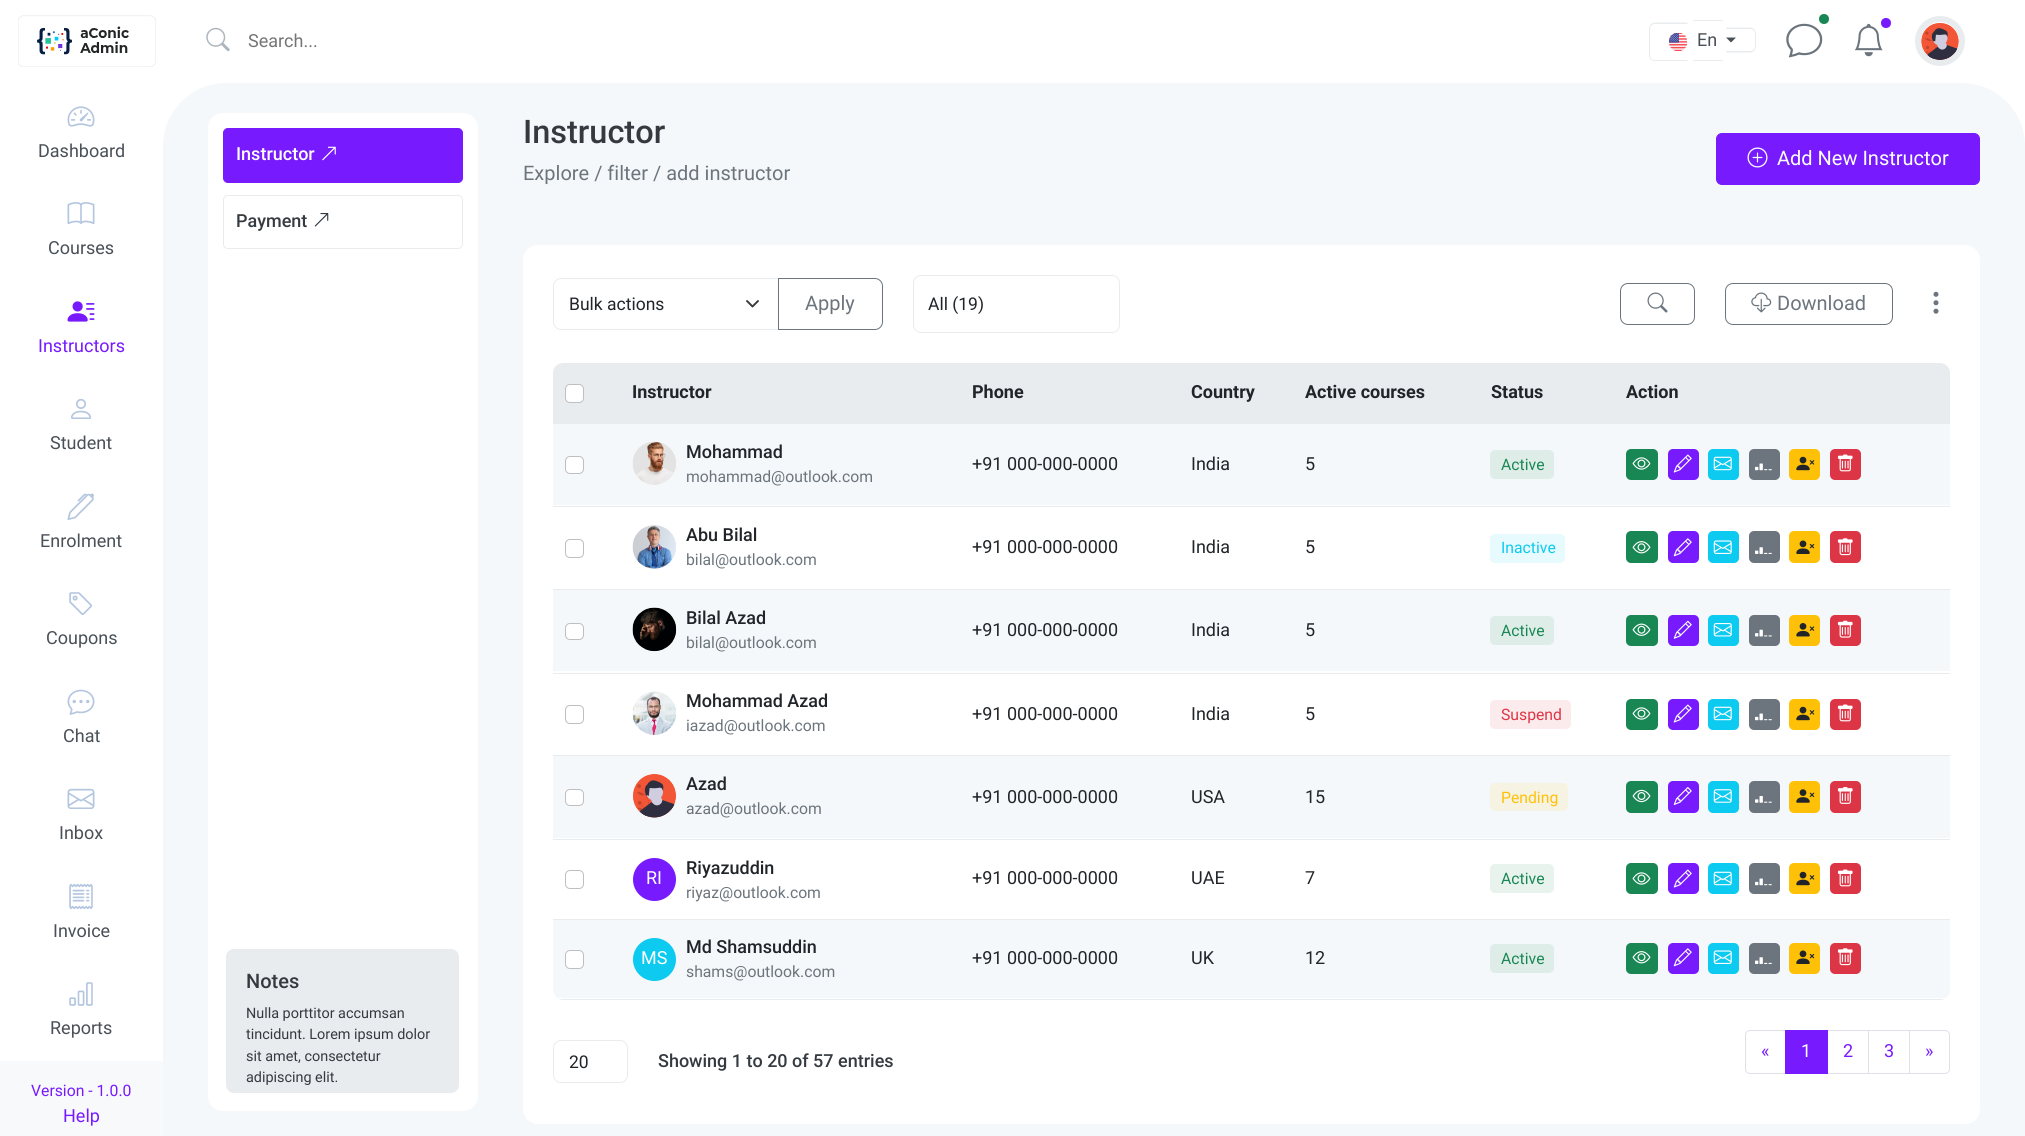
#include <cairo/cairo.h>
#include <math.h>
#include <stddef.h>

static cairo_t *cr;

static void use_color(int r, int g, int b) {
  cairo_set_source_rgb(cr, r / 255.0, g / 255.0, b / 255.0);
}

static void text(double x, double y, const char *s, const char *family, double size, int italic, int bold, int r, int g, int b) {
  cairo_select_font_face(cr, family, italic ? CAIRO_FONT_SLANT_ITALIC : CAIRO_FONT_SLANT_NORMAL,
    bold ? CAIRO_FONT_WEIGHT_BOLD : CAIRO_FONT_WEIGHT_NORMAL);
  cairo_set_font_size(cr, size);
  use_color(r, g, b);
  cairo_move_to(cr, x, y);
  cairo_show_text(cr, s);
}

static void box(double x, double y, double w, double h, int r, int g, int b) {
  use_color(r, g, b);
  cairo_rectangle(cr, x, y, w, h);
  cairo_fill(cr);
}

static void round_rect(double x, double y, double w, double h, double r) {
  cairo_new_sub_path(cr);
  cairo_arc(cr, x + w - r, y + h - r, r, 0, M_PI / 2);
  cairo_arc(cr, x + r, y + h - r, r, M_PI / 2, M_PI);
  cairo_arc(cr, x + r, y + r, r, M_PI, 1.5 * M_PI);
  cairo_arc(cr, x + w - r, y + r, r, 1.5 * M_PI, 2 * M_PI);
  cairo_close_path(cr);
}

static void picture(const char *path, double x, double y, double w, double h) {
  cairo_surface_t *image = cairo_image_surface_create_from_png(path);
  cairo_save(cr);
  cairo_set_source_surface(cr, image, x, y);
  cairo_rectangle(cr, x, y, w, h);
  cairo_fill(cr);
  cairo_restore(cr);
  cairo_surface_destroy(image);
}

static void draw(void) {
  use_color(255, 255, 255);
  cairo_paint(cr);
  picture("img_01.png", 206, 27, 24, 25);
  use_color(233, 236, 239);
  cairo_set_fill_rule(cr, CAIRO_FILL_RULE_EVEN_ODD);
  cairo_new_path(cr);
  cairo_move_to(cr, 1655, 22.5);
  cairo_line_to(cr, 1687.5, 22.5);
  cairo_line_to(cr, 1687.5, 61);
  cairo_line_to(cr, 1655, 61);
  cairo_curve_to(cr, 1651.5, 61, 1649, 58.5, 1649, 55);
  cairo_line_to(cr, 1649, 29);
  cairo_curve_to(cr, 1649, 25.5, 1651.5, 22.5, 1655, 22.5);
  cairo_close_path(cr);
  cairo_move_to(cr, 1655, 24);
  cairo_line_to(cr, 1687.5, 24);
  cairo_line_to(cr, 1687.5, 60);
  cairo_line_to(cr, 1655, 60);
  cairo_curve_to(cr, 1652, 60, 1650, 58, 1650, 55);
  cairo_line_to(cr, 1650, 29);
  cairo_curve_to(cr, 1650, 26, 1652, 24, 1655, 24);
  cairo_close_path(cr);
  cairo_fill(cr);
  box(1693, 20, 30, 1, 233, 236, 239);
  box(1693, 60, 30, 1, 233, 236, 239);
  cairo_new_path(cr);
  cairo_move_to(cr, 1726, 27.5);
  cairo_line_to(cr, 1750, 27.5);
  cairo_curve_to(cr, 1753.5, 27.5, 1756, 30.5, 1756, 34);
  cairo_line_to(cr, 1756, 46);
  cairo_curve_to(cr, 1756, 49.5, 1753.5, 52.5, 1750, 52.5);
  cairo_line_to(cr, 1726, 52.5);
  cairo_close_path(cr);
  cairo_move_to(cr, 1726, 29);
  cairo_line_to(cr, 1750, 29);
  cairo_curve_to(cr, 1753, 29, 1755, 31, 1755, 34);
  cairo_line_to(cr, 1755, 46);
  cairo_curve_to(cr, 1755, 49, 1753, 51, 1750, 51);
  cairo_line_to(cr, 1726, 51);
  cairo_close_path(cr);
  cairo_fill(cr);
  picture("img_02.png", 1669, 33, 19, 18);
  use_color(73, 80, 87);
  cairo_set_fill_rule(cr, CAIRO_FILL_RULE_WINDING);
  cairo_new_path(cr);
  cairo_move_to(cr, 1726, 37.5);
  cairo_line_to(cr, 1736, 37.5);
  cairo_line_to(cr, 1731, 42.5);
  cairo_close_path(cr);
  cairo_fill(cr);
  picture("img_03.png", 1786, 23, 37, 35);
  use_color(25, 135, 84);
  cairo_arc(cr, 1824, 19, 5, 0, 2 * M_PI);
  cairo_fill(cr);
  picture("img_04.png", 1854, 23, 29, 34);
  use_color(119, 26, 254);
  cairo_arc(cr, 1886, 23, 5, 0, 2 * M_PI);
  cairo_fill(cr);
  cairo_arc(cr, 1940, 41, 22, 0, 2 * M_PI);
  use_color(233, 236, 239);
  cairo_set_line_width(cr, 6);
  cairo_stroke(cr);
  picture("img_05.png", 1921, 23, 38, 37);
  picture("img_06.png", 18, 15, 138, 52);
  picture("img_07.png", 67, 106, 28, 21);
  picture("img_08.png", 67, 202, 28, 23);
  picture("img_09.png", 67, 301, 28, 21);
  picture("img_10.png", 71, 398, 21, 21);
  picture("img_11.png", 67, 493, 27, 27);
  picture("img_12.png", 69, 592, 23, 23);
  picture("img_13.png", 67, 689, 28, 26);
  picture("img_14.png", 67, 788, 28, 21);
  picture("img_15.png", 69, 883, 24, 27);
  picture("img_16.png", 69, 982, 24, 24);
  box(0, 1061, 163, 75, 248, 249, 250);
  use_color(245, 248, 250);
  round_rect(163, 83, 1862, 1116, 63);
  cairo_fill(cr);
  use_color(255, 255, 255);
  round_rect(208, 113, 270, 998, 15);
  cairo_fill(cr);
  use_color(119, 26, 254);
  round_rect(223.5, 128.5, 239, 54, 4.5);
  cairo_fill_preserve(cr);
  cairo_set_line_width(cr, 1);
  cairo_stroke(cr);
  picture("img_17.png", 322, 146, 14, 15);
  round_rect(223.5, 195.5, 239, 53, 4.5);
  use_color(233, 236, 239);
  cairo_stroke(cr);
  picture("img_18.png", 314, 213, 15, 14);
  round_rect(226, 949, 233, 144, 8);
  cairo_fill(cr);
  use_color(119, 26, 254);
  round_rect(1716.5, 133.5, 263, 51, 5.5);
  cairo_fill_preserve(cr);
  cairo_stroke(cr);
  picture("img_19.png", 1747, 147, 21, 21);
  use_color(255, 255, 255);
  round_rect(523, 245, 1457, 879, 15);
  cairo_fill(cr);
  cairo_new_path(cr);
  cairo_move_to(cr, 747, 301);
  cairo_line_to(cr, 752.5, 306.5);
  cairo_line_to(cr, 758, 301);
  use_color(52, 58, 64);
  cairo_set_line_width(cr, 1.9);
  cairo_set_line_cap(cr, CAIRO_LINE_CAP_ROUND);
  cairo_set_line_join(cr, CAIRO_LINE_JOIN_ROUND);
  cairo_stroke(cr);
  cairo_new_path(cr);
  cairo_move_to(cr, 561, 278.5);
  cairo_line_to(cr, 778.5, 278.5);
  cairo_line_to(cr, 778.5, 329.5);
  cairo_line_to(cr, 561, 329.5);
  cairo_curve_to(cr, 557, 329.5, 553.5, 326, 553.5, 322);
  cairo_line_to(cr, 553.5, 286);
  cairo_curve_to(cr, 553.5, 282, 557, 278.5, 561, 278.5);
  cairo_close_path(cr);
  use_color(233, 236, 239);
  cairo_set_line_width(cr, 1);
  cairo_set_line_cap(cr, CAIRO_LINE_CAP_BUTT);
  cairo_set_line_join(cr, CAIRO_LINE_JOIN_MITER);
  cairo_stroke(cr);
  cairo_new_path(cr);
  cairo_move_to(cr, 778.5, 278.5);
  cairo_line_to(cr, 875, 278.5);
  cairo_curve_to(cr, 879, 278.5, 882.5, 282, 882.5, 286);
  cairo_line_to(cr, 882.5, 322);
  cairo_curve_to(cr, 882.5, 326, 879, 329.5, 875, 329.5);
  cairo_line_to(cr, 778.5, 329.5);
  cairo_close_path(cr);
  use_color(108, 117, 125);
  cairo_stroke(cr);
  round_rect(913.5, 275.5, 206, 57, 7.5);
  use_color(233, 236, 239);
  cairo_stroke(cr);
  round_rect(1620.5, 283.5, 74, 41, 7.5);
  use_color(108, 117, 125);
  cairo_stroke(cr);
  picture("img_20.png", 1647, 292, 21, 21);
  round_rect(1725.5, 283.5, 167, 41, 7.5);
  cairo_stroke(cr);
  picture("img_21.png", 1751, 292, 21, 21);
  picture("img_22.png", 1933, 291, 6, 23);
  use_color(233, 236, 239);
  cairo_new_path(cr);
  cairo_move_to(cr, 563, 363);
  cairo_line_to(cr, 1940, 363);
  cairo_curve_to(cr, 1945.5, 363, 1950, 367.5, 1950, 373);
  cairo_line_to(cr, 1950, 424);
  cairo_line_to(cr, 553, 424);
  cairo_line_to(cr, 553, 373);
  cairo_curve_to(cr, 553, 367.5, 557.5, 363, 563, 363);
  cairo_close_path(cr);
  cairo_fill(cr);
  use_color(255, 255, 255);
  round_rect(565, 384, 19, 19, 5);
  cairo_fill(cr);
  round_rect(565.5, 384.5, 18, 18, 4.5);
  cairo_set_source_rgba(cr, 0, 0, 0, 0.25);
  cairo_stroke(cr);
  box(553, 424, 1397, 81, 245, 248, 250);
  use_color(255, 255, 255);
  round_rect(565, 456, 19, 18, 5);
  cairo_fill(cr);
  round_rect(565.5, 456.5, 18, 17, 4.5);
  cairo_set_source_rgba(cr, 0, 0, 0, 0.25);
  cairo_stroke(cr);
  use_color(255, 255, 255);
  round_rect(633, 441, 43, 44, 21.5);
  cairo_fill(cr);
  picture("img_23.png", 632, 441, 44, 44);
  box(553, 506, 1397, 1, 233, 236, 239);
  use_color(25, 135, 84);
  round_rect(1626, 449, 32, 31, 5);
  cairo_fill(cr);
  picture("img_24.png", 1632, 457, 19, 13);
  use_color(119, 26, 254);
  round_rect(1668, 449, 31, 31, 5);
  cairo_fill(cr);
  picture("img_25.png", 1673, 454, 19, 19);
  use_color(13, 202, 240);
  round_rect(1708, 449, 31, 31, 5);
  cairo_fill(cr);
  picture("img_26.png", 1713, 456, 19, 15);
  use_color(108, 117, 125);
  round_rect(1749, 449, 31, 31, 5);
  cairo_fill(cr);
  picture("img_27.png", 1755, 463, 17, 8);
  use_color(255, 193, 7);
  round_rect(1789, 449, 31, 31, 5);
  cairo_fill(cr);
  picture("img_28.png", 1796, 456, 19, 15);
  use_color(220, 53, 69);
  round_rect(1830, 449, 31, 31, 5);
  cairo_fill(cr);
  picture("img_29.png", 1837, 454, 16, 18);
  use_color(223, 237, 233);
  round_rect(1490, 450, 64, 29, 5);
  cairo_fill(cr);
  picture("img_30.png", 632, 525, 44, 44);
  box(553, 589, 1397, 1, 233, 236, 239);
  use_color(25, 135, 84);
  round_rect(1626, 531, 32, 32, 5);
  cairo_fill(cr);
  picture("img_31.png", 1632, 541, 19, 13);
  use_color(119, 26, 254);
  round_rect(1668, 531, 31, 32, 5);
  cairo_fill(cr);
  picture("img_32.png", 1673, 538, 19, 19);
  use_color(13, 202, 240);
  round_rect(1708, 531, 31, 32, 5);
  cairo_fill(cr);
  picture("img_33.png", 1713, 540, 19, 14);
  use_color(108, 117, 125);
  round_rect(1749, 531, 31, 32, 5);
  cairo_fill(cr);
  picture("img_34.png", 1755, 547, 17, 7);
  use_color(255, 193, 7);
  round_rect(1789, 531, 31, 32, 5);
  cairo_fill(cr);
  picture("img_35.png", 1796, 540, 19, 14);
  use_color(220, 53, 69);
  round_rect(1830, 531, 31, 32, 5);
  cairo_fill(cr);
  picture("img_36.png", 1837, 538, 16, 18);
  round_rect(565.5, 539.5, 18, 18, 4.5);
  use_color(191, 191, 191);
  cairo_stroke(cr);
  use_color(231, 250, 254);
  round_rect(1490, 534, 75, 29, 5);
  cairo_fill(cr);
  box(553, 590, 1397, 81, 245, 248, 250);
  use_color(255, 255, 255);
  round_rect(565, 623, 19, 17, 5);
  cairo_fill(cr);
  round_rect(565.5, 623.5, 18, 16, 4.5);
  cairo_set_source_rgba(cr, 0, 0, 0, 0.25);
  cairo_stroke(cr);
  picture("img_37.png", 632, 607, 45, 45);
  box(553, 673, 1397, 1, 233, 236, 239);
  use_color(25, 135, 84);
  round_rect(1626, 615, 32, 31, 5);
  cairo_fill(cr);
  picture("img_38.png", 1632, 623, 19, 13);
  use_color(119, 26, 254);
  round_rect(1668, 615, 31, 31, 5);
  cairo_fill(cr);
  picture("img_39.png", 1673, 620, 19, 19);
  use_color(13, 202, 240);
  round_rect(1708, 615, 31, 31, 5);
  cairo_fill(cr);
  picture("img_40.png", 1713, 623, 19, 14);
  use_color(108, 117, 125);
  round_rect(1749, 615, 31, 31, 5);
  cairo_fill(cr);
  picture("img_41.png", 1755, 629, 17, 8);
  use_color(255, 193, 7);
  round_rect(1789, 615, 31, 31, 5);
  cairo_fill(cr);
  picture("img_42.png", 1796, 623, 19, 14);
  use_color(220, 53, 69);
  round_rect(1830, 615, 31, 31, 5);
  cairo_fill(cr);
  picture("img_43.png", 1837, 620, 16, 18);
  use_color(223, 237, 233);
  round_rect(1490, 616, 64, 29, 5);
  cairo_fill(cr);
  picture("img_44.png", 632, 691, 44, 44);
  box(553, 755, 1397, 1, 233, 236, 239);
  use_color(25, 135, 84);
  round_rect(1626, 699, 32, 31, 5);
  cairo_fill(cr);
  picture("img_24.png", 1632, 707, 19, 13);
  use_color(119, 26, 254);
  round_rect(1668, 699, 31, 31, 5);
  cairo_fill(cr);
  picture("img_25.png", 1673, 704, 19, 19);
  use_color(13, 202, 240);
  round_rect(1708, 699, 31, 31, 5);
  cairo_fill(cr);
  picture("img_26.png", 1713, 706, 19, 15);
  use_color(108, 117, 125);
  round_rect(1749, 699, 31, 31, 5);
  cairo_fill(cr);
  picture("img_27.png", 1755, 713, 17, 8);
  use_color(255, 193, 7);
  round_rect(1789, 699, 31, 31, 5);
  cairo_fill(cr);
  picture("img_28.png", 1796, 706, 19, 15);
  use_color(220, 53, 69);
  round_rect(1830, 699, 31, 31, 5);
  cairo_fill(cr);
  picture("img_29.png", 1837, 704, 16, 18);
  round_rect(565.5, 705.5, 18, 18, 4.5);
  use_color(191, 191, 191);
  cairo_stroke(cr);
  use_color(252, 235, 236);
  round_rect(1490, 700, 81, 29, 5);
  cairo_fill(cr);
  box(553, 756, 1397, 82, 245, 248, 250);
  use_color(255, 255, 255);
  round_rect(565, 789, 19, 17, 5);
  cairo_fill(cr);
  round_rect(565.5, 789.5, 18, 16, 4.5);
  cairo_set_source_rgba(cr, 0, 0, 0, 0.25);
  cairo_stroke(cr);
  use_color(255, 255, 255);
  round_rect(633, 774, 43, 44, 21.5);
  cairo_fill(cr);
  picture("img_45.png", 633, 774, 43, 44);
  box(553, 839, 1397, 1, 233, 236, 239);
  use_color(25, 135, 84);
  round_rect(1626, 781, 32, 32, 5);
  cairo_fill(cr);
  picture("img_46.png", 1632, 789, 19, 14);
  use_color(119, 26, 254);
  round_rect(1668, 781, 31, 32, 5);
  cairo_fill(cr);
  picture("img_47.png", 1673, 787, 19, 18);
  use_color(13, 202, 240);
  round_rect(1708, 781, 31, 32, 5);
  cairo_fill(cr);
  picture("img_48.png", 1713, 789, 19, 14);
  use_color(108, 117, 125);
  round_rect(1749, 781, 31, 32, 5);
  cairo_fill(cr);
  picture("img_49.png", 1755, 796, 17, 7);
  use_color(255, 193, 7);
  round_rect(1789, 781, 31, 32, 5);
  cairo_fill(cr);
  picture("img_50.png", 1796, 789, 19, 14);
  use_color(220, 53, 69);
  round_rect(1830, 781, 31, 32, 5);
  cairo_fill(cr);
  picture("img_51.png", 1837, 787, 16, 17);
  use_color(246, 243, 226);
  round_rect(1490, 783, 78, 28, 5);
  cairo_fill(cr);
  use_color(119, 26, 254);
  cairo_arc(cr, 654.5, 879.5, 21.5, 0, 2 * M_PI);
  cairo_fill(cr);
  box(553, 919, 1397, 1, 233, 236, 239);
  use_color(25, 135, 84);
  round_rect(1626, 863, 32, 31, 5);
  cairo_fill(cr);
  picture("img_24.png", 1632, 872, 19, 13);
  use_color(119, 26, 254);
  round_rect(1668, 863, 31, 31, 5);
  cairo_fill(cr);
  picture("img_25.png", 1673, 869, 19, 19);
  use_color(13, 202, 240);
  round_rect(1708, 863, 31, 31, 5);
  cairo_fill(cr);
  picture("img_26.png", 1713, 871, 19, 15);
  use_color(108, 117, 125);
  round_rect(1749, 863, 31, 31, 5);
  cairo_fill(cr);
  picture("img_27.png", 1755, 878, 17, 8);
  use_color(255, 193, 7);
  round_rect(1789, 863, 31, 31, 5);
  cairo_fill(cr);
  picture("img_28.png", 1796, 871, 19, 15);
  use_color(220, 53, 69);
  round_rect(1830, 863, 31, 31, 5);
  cairo_fill(cr);
  picture("img_29.png", 1837, 869, 16, 18);
  round_rect(565.5, 870.5, 18, 18, 4.5);
  use_color(191, 191, 191);
  cairo_stroke(cr);
  use_color(232, 243, 238);
  round_rect(1490, 864, 64, 29, 5);
  cairo_fill(cr);
  cairo_save(cr);
  round_rect(553, 363, 1397, 637, 10);
  cairo_clip(cr);
  box(553, 920, 67, 78, 245, 248, 250);
  box(1614, 999, 336, 1, 233, 236, 239);
  cairo_restore(cr);
  box(619, 999, 996, 1, 233, 236, 239);
  cairo_save(cr);
  round_rect(553, 363, 1397, 637, 10);
  cairo_clip(cr);
  box(553, 999, 67, 1, 233, 236, 239);
  cairo_restore(cr);
  use_color(255, 255, 255);
  round_rect(565, 950, 19, 19, 5);
  cairo_fill(cr);
  round_rect(565.5, 950.5, 18, 18, 4.5);
  cairo_set_source_rgba(cr, 0, 0, 0, 0.25);
  cairo_stroke(cr);
  box(620, 920, 994, 78, 245, 248, 250);
  use_color(13, 202, 240);
  cairo_arc(cr, 654.5, 959.5, 21.5, 0, 2 * M_PI);
  cairo_fill(cr);
  use_color(223, 237, 233);
  round_rect(1490, 944, 64, 29, 5);
  cairo_fill(cr);
  cairo_save(cr);
  round_rect(553, 363, 1397, 637, 10);
  cairo_clip(cr);
  box(1614, 920, 336, 78, 245, 248, 250);
  cairo_restore(cr);
  use_color(25, 135, 84);
  round_rect(1626, 943, 32, 31, 5);
  cairo_fill(cr);
  picture("img_31.png", 1632, 951, 19, 13);
  use_color(119, 26, 254);
  round_rect(1668, 943, 31, 31, 5);
  cairo_fill(cr);
  picture("img_32.png", 1673, 948, 19, 19);
  use_color(13, 202, 240);
  round_rect(1708, 943, 31, 31, 5);
  cairo_fill(cr);
  picture("img_33.png", 1713, 950, 19, 14);
  use_color(108, 117, 125);
  round_rect(1749, 943, 31, 31, 5);
  cairo_fill(cr);
  picture("img_34.png", 1755, 957, 17, 7);
  use_color(255, 193, 7);
  round_rect(1789, 943, 31, 31, 5);
  cairo_fill(cr);
  picture("img_35.png", 1796, 950, 19, 14);
  use_color(220, 53, 69);
  round_rect(1830, 943, 31, 31, 5);
  cairo_fill(cr);
  picture("img_36.png", 1837, 948, 16, 18);
  cairo_new_path(cr);
  cairo_move_to(cr, 1750, 1030.5);
  cairo_line_to(cr, 1785.5, 1030.5);
  cairo_line_to(cr, 1785.5, 1073.5);
  cairo_line_to(cr, 1750, 1073.5);
  cairo_curve_to(cr, 1747.5, 1073.5, 1745.5, 1071.5, 1745.5, 1069);
  cairo_line_to(cr, 1745.5, 1035);
  cairo_curve_to(cr, 1745.5, 1032.5, 1747.5, 1030.5, 1750, 1030.5);
  cairo_close_path(cr);
  use_color(222, 226, 230);
  cairo_stroke(cr);
  cairo_rectangle(cr, 1826.5, 1030.5, 42, 43);
  cairo_stroke(cr);
  box(1785, 1030, 43, 44, 119, 26, 254);
  cairo_rectangle(cr, 1868.5, 1030.5, 41, 43);
  use_color(222, 226, 230);
  cairo_stroke(cr);
  use_color(255, 255, 255);
  cairo_new_path(cr);
  cairo_move_to(cr, 1909.5, 1030.5);
  cairo_line_to(cr, 1945, 1030.5);
  cairo_curve_to(cr, 1947.5, 1030.5, 1949.5, 1032.5, 1949.5, 1035);
  cairo_line_to(cr, 1949.5, 1069);
  cairo_curve_to(cr, 1949.5, 1071.5, 1947.5, 1073.5, 1945, 1073.5);
  cairo_line_to(cr, 1909.5, 1073.5);
  cairo_close_path(cr);
  cairo_fill_preserve(cr);
  use_color(222, 226, 230);
  cairo_stroke(cr);
  round_rect(553.5, 1040.5, 74, 42, 7.5);
  use_color(233, 236, 239);
  cairo_stroke(cr);
  text(248, 47, "Search...", "Roboto", 18, 0, 0, 117, 117, 117);
  text(1697, 46, "En", "Roboto", 18, 0, 0, 73, 80, 87);
  text(38, 157, "Dashboard", "Roboto", 18, 0, 0, 73, 80, 87);
  text(48, 254, "Courses", "Roboto", 18, 0, 0, 73, 80, 87);
  text(38, 352, "Instructors", "Roboto", 18, 0, 0, 119, 26, 254);
  text(50, 449, "Student", "Roboto", 18, 0, 0, 73, 80, 87);
  text(40, 547, "Enrolment", "Roboto", 18, 0, 0, 73, 80, 87);
  text(46, 644, "Coupons", "Roboto", 18, 0, 0, 73, 80, 87);
  text(63, 742, "Chat", "Roboto", 18, 0, 0, 73, 80, 87);
  text(59, 839, "Inbox", "Roboto", 18, 0, 0, 73, 80, 87);
  text(53, 937, "Invoice", "Roboto", 18, 0, 0, 73, 80, 87);
  text(50, 1034, "Reports", "Roboto", 18, 0, 0, 73, 80, 87);
  text(31, 1096, "Version - 1.0.0", "Roboto", 15.75, 0, 0, 119, 26, 254);
  text(63, 1122, "Help", "Roboto", 18, 0, 0, 119, 26, 254);
  text(236, 160, "Instructor", "Roboto Medium", 18, 0, 0, 255, 255, 255);
  text(236, 227, "Payment", "Roboto Medium", 18, 0, 0, 52, 58, 64);
  text(246, 988, "Notes", "Roboto Medium", 20, 0, 0, 52, 58, 64);
  text(246, 1018, "Nulla porttitor accumsan", "Roboto", 14.4, 0, 0, 52, 58, 64);
  text(246, 1039, "tincidunt. Lorem ipsum dolor", "Roboto", 14.4, 0, 0, 52, 58, 64);
  text(246, 1061, "sit amet, consectetur", "Roboto", 14.4, 0, 0, 52, 58, 64);
  text(246, 1082, "adipiscing elit.", "Roboto", 14.4, 0, 0, 52, 58, 64);
  text(523, 143, "Instructor", "Roboto Medium", 32.5, 0, 0, 52, 58, 64);
  text(523, 180, "Explore / filter / add instructor", "Roboto", 20, 0, 0, 108, 117, 125);
  text(1777, 165, "Add New Instructor", "Roboto", 20, 0, 0, 255, 255, 255);
  text(569, 310, "Bulk actions", "Roboto", 17.5, 0, 0, 33, 37, 41);
  text(805, 310, "Apply", "Roboto", 20, 0, 0, 108, 117, 125);
  text(928, 310, "All (19)", "Roboto", 17.5, 0, 0, 33, 37, 41);
  text(1777, 310, "Download", "Roboto", 20, 0, 0, 108, 117, 125);
  text(632, 398, "Instructor", "Roboto", 18, 0, 1, 33, 37, 41);
  text(972, 398, "Phone", "Roboto", 18, 0, 1, 33, 37, 41);
  text(1191, 398, "Country", "Roboto", 18, 0, 1, 33, 37, 41);
  text(1305, 398, "Active courses", "Roboto", 18, 0, 1, 33, 37, 41);
  text(1491, 398, "Status", "Roboto", 18, 0, 1, 33, 37, 41);
  text(1626, 398, "Action", "Roboto", 18, 0, 1, 33, 37, 41);
  text(686, 458, "Mohammad", "Roboto Medium", 18, 0, 0, 33, 37, 41);
  text(686, 482, "mohammad@outlook.com", "Roboto", 15.75, 0, 0, 108, 117, 125);
  text(972, 470, "+91 000-000-0000", "Roboto", 18, 0, 0, 33, 37, 41);
  text(1191, 470, "India", "Roboto", 18, 0, 0, 33, 37, 41);
  text(1305, 470, "5", "Roboto", 18, 0, 0, 33, 37, 41);
  text(1501, 470, "Active", "Roboto", 15.75, 0, 0, 25, 135, 84);
  text(686, 541, "Abu Bilal", "Roboto Medium", 18, 0, 0, 33, 37, 41);
  text(686, 565, "bilal@outlook.com", "Roboto", 15.75, 0, 0, 108, 117, 125);
  text(972, 553, "+91 000-000-0000", "Roboto", 18, 0, 0, 33, 37, 41);
  text(1191, 553, "India", "Roboto", 18, 0, 0, 33, 37, 41);
  text(1305, 553, "5", "Roboto", 18, 0, 0, 33, 37, 41);
  text(1501, 553, "Inactive", "Roboto", 15.75, 0, 0, 13, 202, 240);
  text(686, 624, "Bilal Azad", "Roboto Medium", 18, 0, 0, 33, 37, 41);
  text(686, 648, "bilal@outlook.com", "Roboto", 15.75, 0, 0, 108, 117, 125);
  text(972, 636, "+91 000-000-0000", "Roboto", 18, 0, 0, 33, 37, 41);
  text(1191, 636, "India", "Roboto", 18, 0, 0, 33, 37, 41);
  text(1305, 636, "5", "Roboto", 18, 0, 0, 33, 37, 41);
  text(1501, 636, "Active", "Roboto", 15.75, 0, 0, 25, 135, 84);
  text(686, 707, "Mohammad Azad", "Roboto Medium", 18, 0, 0, 33, 37, 41);
  text(686, 731, "iazad@outlook.com", "Roboto", 15.75, 0, 0, 108, 117, 125);
  text(972, 720, "+91 000-000-0000", "Roboto", 18, 0, 0, 33, 37, 41);
  text(1191, 720, "India", "Roboto", 18, 0, 0, 33, 37, 41);
  text(1305, 720, "5", "Roboto", 18, 0, 0, 33, 37, 41);
  text(1501, 720, "Suspend", "Roboto", 15.75, 0, 0, 220, 53, 69);
  text(686, 790, "Azad", "Roboto Medium", 18, 0, 0, 33, 37, 41);
  text(686, 814, "azad@outlook.com", "Roboto", 15.75, 0, 0, 108, 117, 125);
  text(972, 803, "+91 000-000-0000", "Roboto", 18, 0, 0, 33, 37, 41);
  text(1191, 803, "USA", "Roboto", 18, 0, 0, 33, 37, 41);
  text(1305, 803, "15", "Roboto", 18, 0, 0, 33, 37, 41);
  text(1501, 803, "Pending", "Roboto", 15.75, 0, 0, 255, 193, 7);
  text(646, 884, "RI", "Roboto", 18, 0, 0, 255, 255, 255);
  text(686, 874, "Riyazuddin", "Roboto Medium", 18, 0, 0, 33, 37, 41);
  text(686, 898, "riyaz@outlook.com", "Roboto", 15.75, 0, 0, 108, 117, 125);
  text(972, 884, "+91 000-000-0000", "Roboto", 18, 0, 0, 33, 37, 41);
  text(1191, 884, "UAE", "Roboto", 18, 0, 0, 33, 37, 41);
  text(1305, 884, "7", "Roboto", 18, 0, 0, 33, 37, 41);
  text(1501, 884, "Active", "Roboto", 15.75, 0, 0, 25, 135, 84);
  text(641, 964, "MS", "Roboto", 18, 0, 0, 255, 255, 255);
  text(686, 953, "Md Shamsuddin", "Roboto Medium", 18, 0, 0, 33, 37, 41);
  text(686, 977, "shams@outlook.com", "Roboto", 15.75, 0, 0, 108, 117, 125);
  text(972, 964, "+91 000-000-0000", "Roboto", 18, 0, 0, 33, 37, 41);
  text(1191, 964, "UK", "Roboto", 18, 0, 0, 33, 37, 41);
  text(1305, 964, "12", "Roboto", 18, 0, 0, 33, 37, 41);
  text(1501, 964, "Active", "Roboto", 15.75, 0, 0, 25, 135, 84);
  text(1761, 1057, "«", "Roboto", 18, 0, 0, 119, 26, 254);
  text(1801, 1057, "1", "Roboto", 18, 0, 0, 255, 255, 255);
  text(1843, 1057, "2", "Roboto", 18, 0, 0, 119, 26, 254);
  text(1884, 1057, "3", "Roboto", 18, 0, 0, 119, 26, 254);
  text(1925, 1057, "»", "Roboto", 18, 0, 0, 119, 26, 254);
  text(569, 1068, "20", "Roboto", 17.5, 0, 0, 33, 37, 41);
  text(658, 1067, "Showing 1 to 20 of 57 entries", "Roboto Medium", 18, 0, 0, 52, 58, 64);
}

int main(void) {
  cairo_surface_t *surface = cairo_image_surface_create(CAIRO_FORMAT_RGB24, 2025, 1136);
  cr = cairo_create(surface);
  cairo_font_options_t *options = cairo_font_options_create();
  cairo_font_options_set_hint_metrics(options, CAIRO_HINT_METRICS_OFF);
  cairo_font_options_set_hint_style(options, CAIRO_HINT_STYLE_NONE);
  cairo_set_font_options(cr, options);
  cairo_set_miter_limit(cr, 4);
  draw();
  cairo_surface_write_to_png(surface, "out.png");
  cairo_font_options_destroy(options);
  cairo_destroy(cr);
  cairo_surface_destroy(surface);
  return 0;
}
